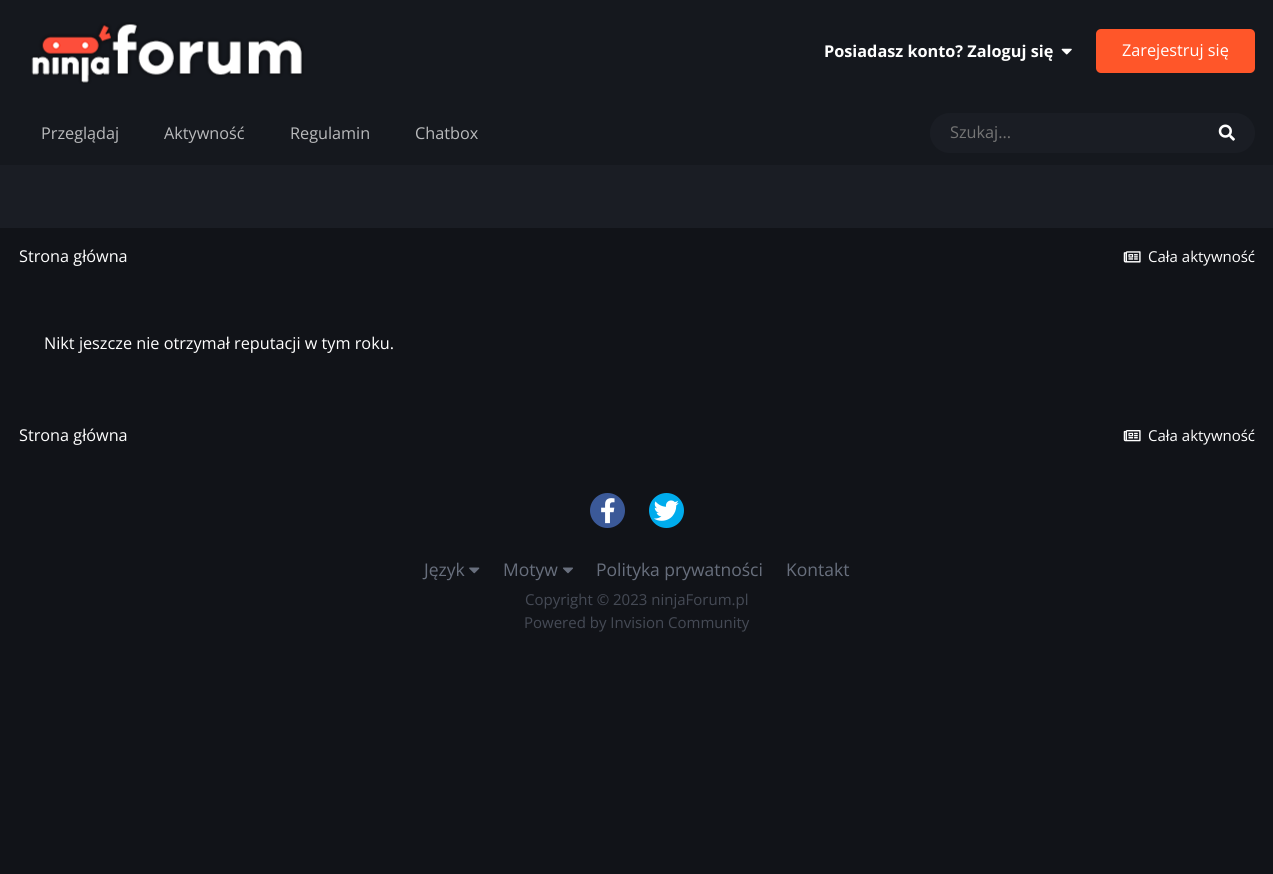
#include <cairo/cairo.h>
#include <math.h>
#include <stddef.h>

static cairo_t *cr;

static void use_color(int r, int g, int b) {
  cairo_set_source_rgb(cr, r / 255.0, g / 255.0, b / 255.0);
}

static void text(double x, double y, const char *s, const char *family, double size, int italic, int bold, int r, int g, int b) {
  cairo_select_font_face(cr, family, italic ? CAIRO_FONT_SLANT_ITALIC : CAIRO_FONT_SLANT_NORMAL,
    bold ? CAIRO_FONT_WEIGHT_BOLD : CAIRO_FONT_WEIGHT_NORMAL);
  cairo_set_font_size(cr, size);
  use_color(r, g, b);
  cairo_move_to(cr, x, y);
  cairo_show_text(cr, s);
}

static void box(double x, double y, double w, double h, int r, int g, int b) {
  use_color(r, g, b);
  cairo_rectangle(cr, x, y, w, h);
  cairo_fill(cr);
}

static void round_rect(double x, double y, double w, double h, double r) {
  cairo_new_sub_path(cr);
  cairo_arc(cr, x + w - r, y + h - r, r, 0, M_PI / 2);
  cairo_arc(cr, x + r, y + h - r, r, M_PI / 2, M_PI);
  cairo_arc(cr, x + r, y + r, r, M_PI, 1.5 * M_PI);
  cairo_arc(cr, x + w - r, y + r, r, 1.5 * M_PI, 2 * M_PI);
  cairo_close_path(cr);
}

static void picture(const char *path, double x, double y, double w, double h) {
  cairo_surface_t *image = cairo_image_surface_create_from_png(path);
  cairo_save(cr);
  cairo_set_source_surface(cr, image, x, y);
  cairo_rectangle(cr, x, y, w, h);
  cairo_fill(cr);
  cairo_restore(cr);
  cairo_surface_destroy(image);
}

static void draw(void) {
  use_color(17, 19, 24);
  cairo_paint(cr);
  box(0, 0, 1273, 165, 21, 24, 30);
  picture("img_01.png", 30, 22, 274, 62);
  picture("img_02.png", 1061, 48, 11, 7);
  use_color(255, 86, 41);
  round_rect(1096, 29, 159, 44, 5);
  cairo_fill(cr);
  use_color(26, 29, 36);
  round_rect(930, 113, 325, 40, 20);
  cairo_fill(cr);
  picture("img_03.png", 1218, 124, 17, 17);
  box(0, 165, 1273, 63, 26, 29, 36);
  picture("img_04.png", 1123, 251, 18, 12);
  picture("img_05.png", 1123, 430, 18, 12);
  use_color(59, 89, 152);
  cairo_arc(cr, 607.5, 510.5, 17.5, 0, 2 * M_PI);
  cairo_fill(cr);
  picture("img_06.png", 601, 498, 14, 26);
  use_color(0, 172, 237);
  cairo_arc(cr, 666.5, 510.5, 17.5, 0, 2 * M_PI);
  cairo_fill(cr);
  picture("img_07.png", 653, 500, 26, 21);
  picture("img_08.png", 469, 567, 11, 7);
  picture("img_09.png", 563, 567, 10, 7);
  text(824, 57, "Posiadasz konto? Zaloguj się", "Open Sans", 16.25, 0, 1, 255, 255, 255);
  text(1122, 56, "Zarejestruj się", "Open Sans", 16.25, 0, 0, 255, 255, 255);
  text(41, 139, "Przeglądaj", "Open Sans", 16.25, 0, 0, 185, 186, 188);
  text(164, 139, "Aktywność", "Open Sans", 16.25, 0, 0, 185, 186, 188);
  text(290, 139, "Regulamin", "Open Sans", 16.25, 0, 0, 185, 186, 188);
  text(415, 139, "Chatbox", "Open Sans", 16.25, 0, 0, 185, 186, 188);
  text(950, 138, "Szukaj...", "Open Sans", 16.25, 0, 0, 117, 117, 117);
  text(19, 262, "Strona główna", "Open Sans", 16.25, 0, 0, 255, 255, 255);
  text(1148, 262, "Cała aktywność", "Open Sans", 15, 0, 0, 255, 255, 255);
  text(44, 349, "Nikt jeszcze nie otrzymał reputacji w tym roku.", "Open Sans", 16.25, 0, 0, 255, 255, 255);
  text(19, 441, "Strona główna", "Open Sans", 16.25, 0, 0, 255, 255, 255);
  text(1148, 441, "Cała aktywność", "Open Sans", 15, 0, 0, 255, 255, 255);
  text(424, 576, "Język", "Open Sans", 17.5, 0, 0, 104, 111, 125);
  text(503, 576, "Motyw", "Open Sans", 17.5, 0, 0, 104, 111, 125);
  text(596, 576, "Polityka prywatności", "Open Sans", 17.5, 0, 0, 104, 111, 125);
  text(786, 576, "Kontakt", "Open Sans", 17.5, 0, 0, 104, 111, 125);
  text(525, 605, "Copyright © 2023 ninjaForum.pl", "Open Sans", 15, 0, 0, 69, 74, 85);
  text(524, 628, "Powered by Invision Community", "Open Sans", 15, 0, 0, 69, 74, 85);
}

int main(void) {
  cairo_surface_t *surface = cairo_image_surface_create(CAIRO_FORMAT_RGB24, 1273, 874);
  cr = cairo_create(surface);
  cairo_font_options_t *options = cairo_font_options_create();
  cairo_font_options_set_hint_metrics(options, CAIRO_HINT_METRICS_OFF);
  cairo_font_options_set_hint_style(options, CAIRO_HINT_STYLE_NONE);
  cairo_set_font_options(cr, options);
  cairo_set_miter_limit(cr, 4);
  draw();
  cairo_surface_write_to_png(surface, "out.png");
  cairo_font_options_destroy(options);
  cairo_destroy(cr);
  cairo_surface_destroy(surface);
  return 0;
}
